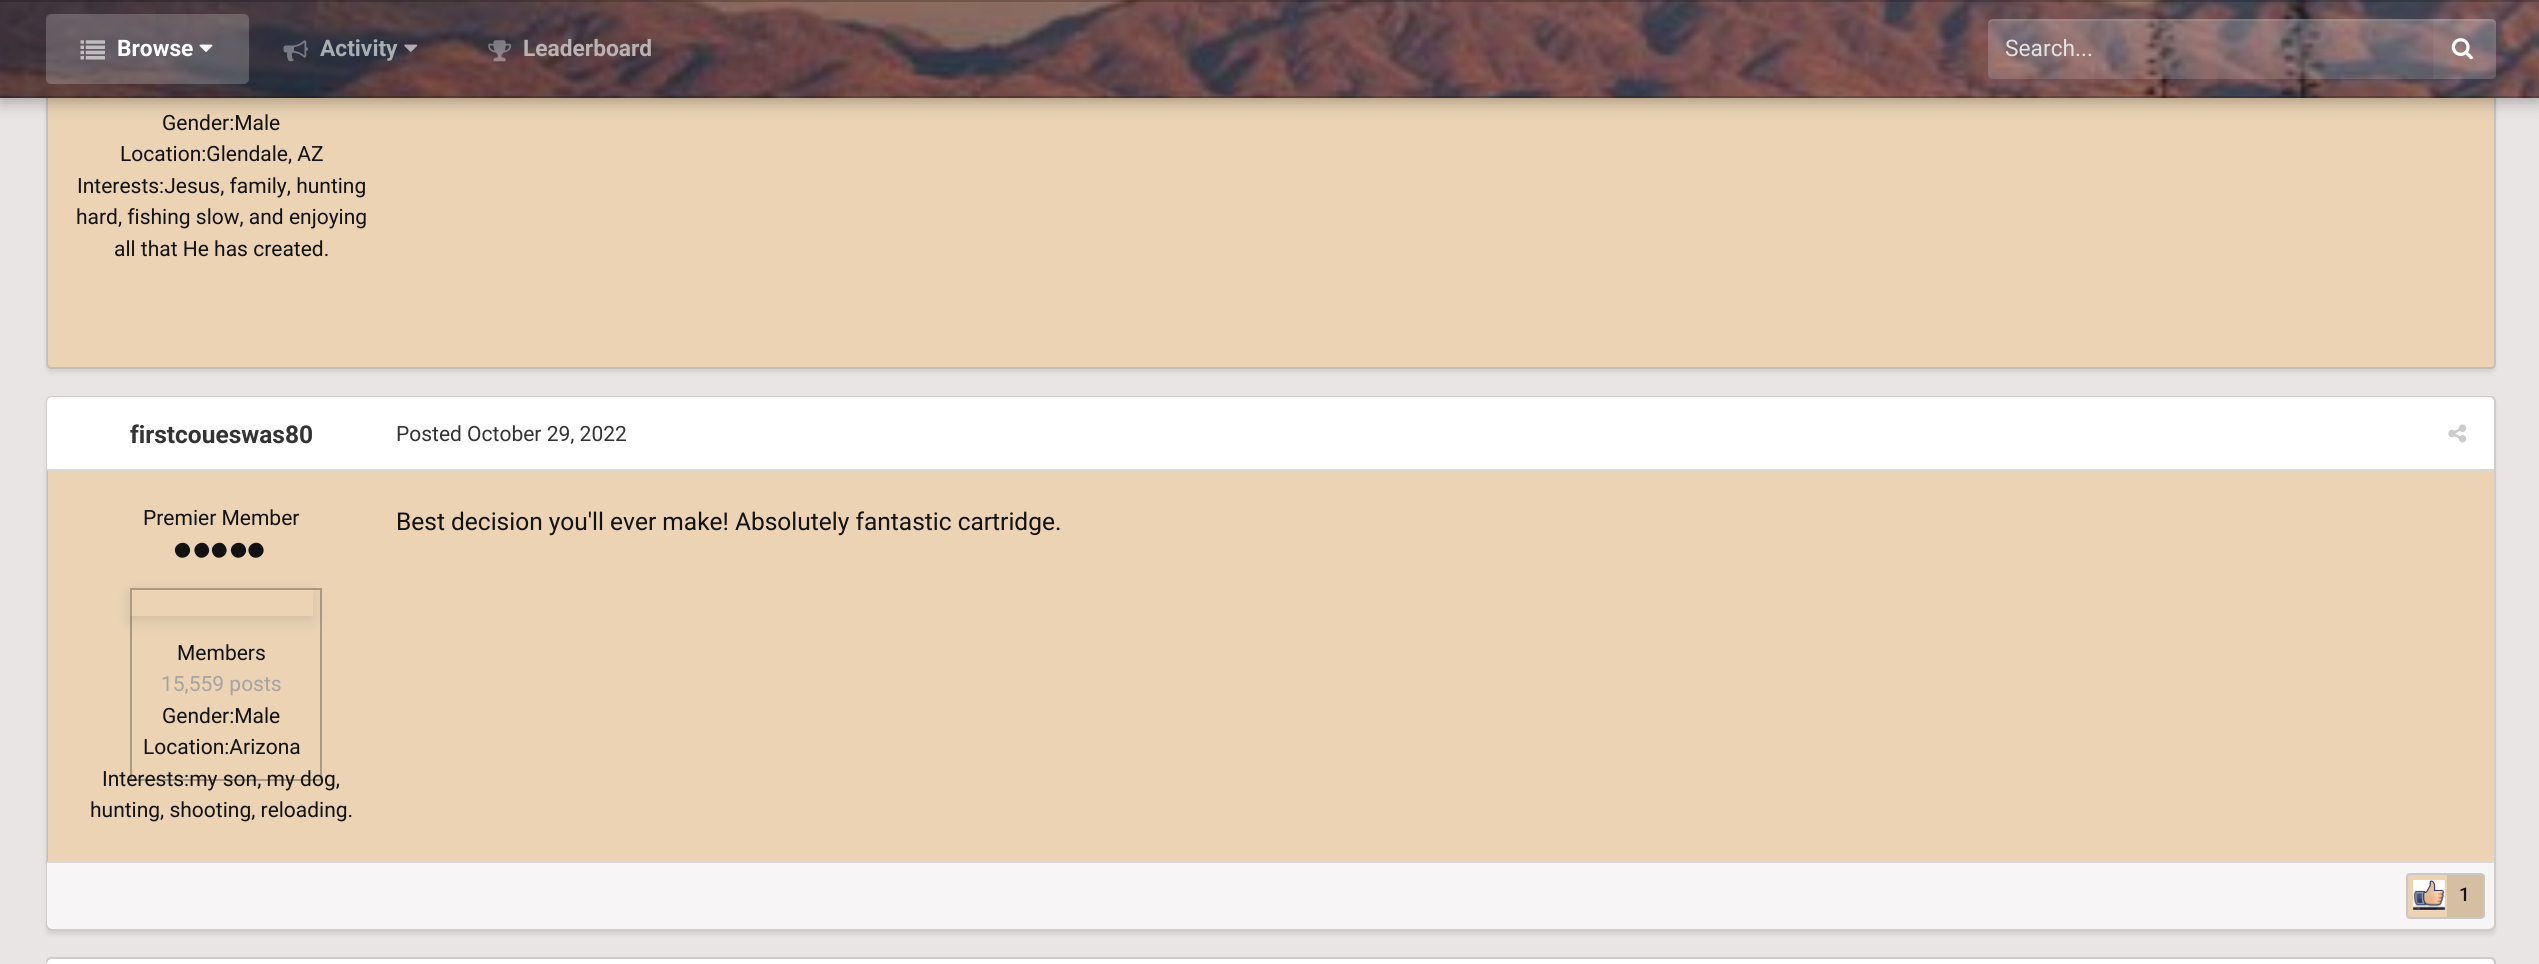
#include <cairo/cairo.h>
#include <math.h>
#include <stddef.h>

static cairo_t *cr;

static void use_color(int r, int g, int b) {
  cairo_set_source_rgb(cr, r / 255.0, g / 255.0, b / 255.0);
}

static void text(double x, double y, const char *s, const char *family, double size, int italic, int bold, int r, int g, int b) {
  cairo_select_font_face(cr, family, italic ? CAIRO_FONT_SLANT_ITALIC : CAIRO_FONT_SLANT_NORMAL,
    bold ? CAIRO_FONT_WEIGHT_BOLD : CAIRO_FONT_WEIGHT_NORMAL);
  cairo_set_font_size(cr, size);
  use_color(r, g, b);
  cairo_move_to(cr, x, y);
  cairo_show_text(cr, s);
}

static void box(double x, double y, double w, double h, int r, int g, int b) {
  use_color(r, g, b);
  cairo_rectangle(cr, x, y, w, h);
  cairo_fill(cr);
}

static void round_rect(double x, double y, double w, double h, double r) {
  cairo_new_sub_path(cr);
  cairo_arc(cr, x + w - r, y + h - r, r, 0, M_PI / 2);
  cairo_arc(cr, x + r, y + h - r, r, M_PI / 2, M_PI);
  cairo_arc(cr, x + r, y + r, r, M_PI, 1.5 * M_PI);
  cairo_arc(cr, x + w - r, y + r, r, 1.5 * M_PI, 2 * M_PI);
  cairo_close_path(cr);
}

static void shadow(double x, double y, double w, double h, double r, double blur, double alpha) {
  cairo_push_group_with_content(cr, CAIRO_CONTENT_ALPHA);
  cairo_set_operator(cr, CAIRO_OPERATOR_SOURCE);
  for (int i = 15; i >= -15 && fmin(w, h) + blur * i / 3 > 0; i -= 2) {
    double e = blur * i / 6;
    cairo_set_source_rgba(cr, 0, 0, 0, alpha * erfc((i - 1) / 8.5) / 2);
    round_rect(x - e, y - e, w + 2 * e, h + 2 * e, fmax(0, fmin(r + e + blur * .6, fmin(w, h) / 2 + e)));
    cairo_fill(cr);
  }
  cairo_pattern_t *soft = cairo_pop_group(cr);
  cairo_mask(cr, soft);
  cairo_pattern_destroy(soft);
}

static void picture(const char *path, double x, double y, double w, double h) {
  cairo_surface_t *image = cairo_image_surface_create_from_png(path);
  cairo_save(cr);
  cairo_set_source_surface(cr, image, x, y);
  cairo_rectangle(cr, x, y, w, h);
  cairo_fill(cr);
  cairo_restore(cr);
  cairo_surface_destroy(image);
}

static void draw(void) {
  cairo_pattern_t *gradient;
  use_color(234, 229, 229);
  cairo_paint(cr);
  use_color(0, 0, 0);
  shadow(46, -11, 2450, 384, 5, 2, 0.08);
  use_color(235, 211, 180);
  round_rect(47, -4, 2447, 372, 4);
  cairo_fill(cr);
  round_rect(47, -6, 2448, 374, 4);
  cairo_set_source_rgba(cr, 0, 0, 0, 0.11);
  cairo_stroke(cr);
  use_color(0, 0, 0);
  shadow(0, -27, 2539, 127, 0, 9, 0.35);
  picture("img_01.png", 0, 0, 2539, 98);
  cairo_set_source_rgba(cr, 0, 0, 0, 0.2);
  cairo_rectangle(cr, 0, 0, 2539, 2);
  cairo_fill(cr);
  cairo_rectangle(cr, 0, 96, 2539, 2);
  cairo_fill(cr);
  cairo_set_source_rgba(cr, 1, 1, 1, 0.2);
  round_rect(46, 14, 203, 70, 5);
  cairo_fill(cr);
  picture("img_02.png", 80, 40, 25, 20);
  picture("img_03.png", 199, 44, 14, 8);
  picture("img_04.png", 283, 40, 25, 22);
  picture("img_05.png", 404, 44, 14, 8);
  picture("img_06.png", 488, 40, 23, 22);
  cairo_set_source_rgba(cr, 1, 1, 1, 0.15);
  round_rect(1988, 19, 508, 60, 5);
  cairo_fill(cr);
  gradient = cairo_pattern_create_linear(2242, 19, 2242, 79);
  cairo_pattern_add_color_stop_rgba(gradient, 0, 1, 1, 1, 0.08);
  cairo_pattern_add_color_stop_rgba(gradient, 1, 1, 1, 1, 0);
  cairo_set_source(cr, gradient);
  cairo_pattern_destroy(gradient);
  round_rect(1988, 19, 508, 60, 5);
  cairo_fill(cr);
  cairo_set_source_rgba(cr, 1, 1, 1, 0.1);
  cairo_new_path(cr);
  cairo_move_to(cr, 1993, 21);
  cairo_line_to(cr, 2490, 21);
  cairo_curve_to(cr, 2493, 21, 2496, 23, 2496, 26);
  cairo_line_to(cr, 2496, 24);
  cairo_curve_to(cr, 2496, 21, 2494, 19, 2491, 19);
  cairo_line_to(cr, 1993, 19);
  cairo_curve_to(cr, 1990, 19, 1988, 21, 1988, 24);
  cairo_line_to(cr, 1988, 26);
  cairo_curve_to(cr, 1988, 23, 1990, 21, 1993, 21);
  cairo_close_path(cr);
  cairo_fill(cr);
  cairo_set_source_rgba(cr, 1, 1, 1, 0.05);
  cairo_rectangle(cr, 2433, 19, 63, 60);
  cairo_fill(cr);
  picture("img_07.png", 2451, 38, 22, 22);
  cairo_save(cr);
  cairo_set_fill_rule(cr, CAIRO_FILL_RULE_EVEN_ODD);
  cairo_new_path(cr);
  cairo_move_to(cr, 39, 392);
  cairo_line_to(cr, 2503, 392);
  cairo_line_to(cr, 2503, 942);
  cairo_line_to(cr, 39, 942);
  cairo_close_path(cr);
  cairo_move_to(cr, 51, 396);
  cairo_line_to(cr, 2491, 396);
  cairo_curve_to(cr, 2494, 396, 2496, 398, 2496, 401);
  cairo_line_to(cr, 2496, 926);
  cairo_curve_to(cr, 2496, 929, 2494, 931, 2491, 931);
  cairo_line_to(cr, 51, 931);
  cairo_curve_to(cr, 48, 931, 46, 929, 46, 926);
  cairo_line_to(cr, 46, 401);
  cairo_curve_to(cr, 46, 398, 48, 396, 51, 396);
  cairo_close_path(cr);
  cairo_clip(cr);
  use_color(0, 0, 0);
  shadow(46, 399, 2450, 536, 5, 2, 0.08);
  cairo_restore(cr);
  use_color(235, 211, 180);
  round_rect(47, 397, 2447, 532, 4);
  cairo_fill(cr);
  round_rect(47, 397, 2448, 533, 4);
  cairo_set_source_rgba(cr, 0, 0, 0, 0.11);
  cairo_stroke(cr);
  use_color(255, 255, 255);
  cairo_new_path(cr);
  cairo_move_to(cr, 52, 397);
  cairo_line_to(cr, 2489, 397);
  cairo_curve_to(cr, 2492, 397, 2494, 399, 2494, 402);
  cairo_line_to(cr, 2494, 471);
  cairo_line_to(cr, 47, 471);
  cairo_line_to(cr, 47, 402);
  cairo_curve_to(cr, 47, 399, 49, 397, 52, 397);
  cairo_close_path(cr);
  cairo_fill(cr);
  box(47, 469, 2447, 2, 217, 217, 217);
  use_color(18, 18, 18);
  cairo_new_path(cr);
  cairo_move_to(cr, 189, 546.5);
  cairo_curve_to(cr, 194, 555, 181, 562.5, 176, 554);
  cairo_curve_to(cr, 171, 545.5, 184, 538, 189, 546.5);
  cairo_close_path(cr);
  cairo_move_to(cr, 208, 546.5);
  cairo_curve_to(cr, 213, 555, 200, 562.5, 195.5, 554);
  cairo_curve_to(cr, 190.5, 545.5, 203.5, 538, 208, 546.5);
  cairo_close_path(cr);
  cairo_move_to(cr, 225.5, 546.5);
  cairo_curve_to(cr, 230.5, 555, 217.5, 562.5, 213, 554);
  cairo_curve_to(cr, 208, 545.5, 221, 538, 225.5, 546.5);
  cairo_close_path(cr);
  cairo_fill(cr);
  cairo_new_path(cr);
  cairo_move_to(cr, 245, 546.5);
  cairo_curve_to(cr, 250, 555, 237, 562.5, 232, 554);
  cairo_curve_to(cr, 227, 545.5, 240, 538, 245, 546.5);
  cairo_close_path(cr);
  cairo_move_to(cr, 262.5, 546.5);
  cairo_curve_to(cr, 267.5, 555, 254.5, 562.5, 249.5, 554);
  cairo_curve_to(cr, 244.5, 545.5, 257.5, 538, 262.5, 546.5);
  cairo_close_path(cr);
  cairo_fill(cr);
  cairo_save(cr);
  cairo_set_fill_rule(cr, CAIRO_FILL_RULE_EVEN_ODD);
  cairo_new_path(cr);
  cairo_move_to(cr, 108, 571);
  cairo_line_to(cr, 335, 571);
  cairo_line_to(cr, 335, 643);
  cairo_line_to(cr, 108, 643);
  cairo_close_path(cr);
  cairo_move_to(cr, 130, 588);
  cairo_line_to(cr, 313, 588);
  cairo_line_to(cr, 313, 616);
  cairo_line_to(cr, 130, 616);
  cairo_close_path(cr);
  cairo_clip(cr);
  use_color(0, 0, 0);
  shadow(130, 593, 183, 28, 0, 7, 0.1);
  cairo_restore(cr);
  picture("img_08.png", 2448, 424, 19, 19);
  use_color(139, 110, 106);
  cairo_new_path(cr);
  cairo_move_to(cr, 47, 861);
  cairo_line_to(cr, 2494, 861);
  cairo_line_to(cr, 2494, 924);
  cairo_curve_to(cr, 2494, 927, 2492, 929, 2489, 929);
  cairo_line_to(cr, 52, 929);
  cairo_curve_to(cr, 49, 929, 47, 927, 47, 924);
  cairo_close_path(cr);
  cairo_fill(cr);
  cairo_set_source_rgba(cr, 1, 1, 1, 0.93);
  cairo_new_path(cr);
  cairo_move_to(cr, 47, 861);
  cairo_line_to(cr, 2494, 861);
  cairo_line_to(cr, 2494, 924);
  cairo_curve_to(cr, 2494, 927, 2492, 929, 2489, 929);
  cairo_line_to(cr, 52, 929);
  cairo_curve_to(cr, 49, 929, 47, 927, 47, 924);
  cairo_close_path(cr);
  cairo_fill(cr);
  box(47, 861, 2447, 2, 217, 215, 215);
  use_color(235, 211, 180);
  round_rect(2408, 875, 75, 42, 2);
  cairo_fill(cr);
  round_rect(2407, 874, 77, 44, 3);
  cairo_set_source_rgba(cr, 0.071, 0.071, 0.071, 0.2);
  cairo_stroke(cr);
  picture("img_09.png", 2413, 880, 32, 30);
  cairo_set_source_rgba(cr, 0.071, 0.071, 0.071, 0.1);
  cairo_rectangle(cr, 2447, 875, 36, 42);
  cairo_fill(cr);
  use_color(235, 211, 180);
  round_rect(47, 959, 2447, 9, 4);
  cairo_fill(cr);
  round_rect(47, 958, 2448, 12, 4);
  cairo_set_source_rgba(cr, 0, 0, 0, 0.11);
  cairo_stroke(cr);
  use_color(255, 255, 255);
  cairo_new_path(cr);
  cairo_move_to(cr, 52, 959);
  cairo_line_to(cr, 2489, 959);
  cairo_curve_to(cr, 2492, 959, 2494, 961, 2494, 964);
  cairo_line_to(cr, 2494, 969);
  cairo_line_to(cr, 47, 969);
  cairo_line_to(cr, 47, 964);
  cairo_curve_to(cr, 47, 961, 49, 959, 52, 959);
  cairo_close_path(cr);
  cairo_fill(cr);
  text(117, 56, "Browse", "Roboto", 22.75, 0, 1, 255, 255, 255);
  text(320, 56, "Activity", "Roboto", 22.75, 0, 1, 170, 173, 178);
  text(523, 56, "Leaderboard", "Roboto", 22.75, 0, 1, 187, 178, 180);
  text(2005, 56, "Search...", "Roboto", 22.75, 0, 0, 230, 225, 226);
  text(162, 130, "Gender:Male", "Roboto", 21, 0, 0, 18, 18, 18);
  text(120, 161, "Location:Glendale, AZ", "Roboto", 21, 0, 0, 18, 18, 18);
  text(77, 193, "Interests:Jesus, family, hunting", "Roboto", 21, 0, 0, 18, 18, 18);
  text(76, 224, "hard, fishing slow, and enjoying", "Roboto", 21, 0, 0, 18, 18, 18);
  text(114, 256, "all that He has created.", "Roboto", 21, 0, 0, 18, 18, 18);
  text(130, 443, "firstcoueswas80", "Roboto", 24.5, 0, 1, 51, 51, 51);
  text(143, 525, "Premier Member", "Roboto", 21, 0, 0, 18, 18, 18);
  text(177, 660, "Members", "Roboto", 21, 0, 0, 18, 18, 18);
  text(161, 691, "15,559 posts", "Roboto", 21, 0, 0, 164, 164, 164);
  text(162, 723, "Gender:Male", "Roboto", 21, 0, 0, 18, 18, 18);
  text(143, 754, "Location:Arizona", "Roboto", 21, 0, 0, 18, 18, 18);
  text(102, 786, "Interests:my son, my dog,", "Roboto", 21, 0, 0, 18, 18, 18);
  cairo_rectangle(cr, 131, 589, 190, 191);
  cairo_set_source_rgba(cr, 0.071, 0.071, 0.071, 0.3);
  cairo_stroke(cr);
  text(90, 817, "hunting, shooting, reloading.", "Roboto", 21, 0, 0, 18, 18, 18);
  text(396, 441, "Posted October 29, 2022", "Roboto", 21, 0, 0, 51, 51, 51);
  text(396, 530, "Best decision you'll ever make! Absolutely fantastic cartridge.", "Roboto", 24.5, 0, 0, 18, 18, 18);
  text(2459, 901, "1", "Roboto Medium", 19, 0, 0, 18, 18, 18);
}

int main(void) {
  cairo_surface_t *surface = cairo_image_surface_create(CAIRO_FORMAT_RGB24, 2539, 964);
  cr = cairo_create(surface);
  cairo_font_options_t *options = cairo_font_options_create();
  cairo_font_options_set_hint_metrics(options, CAIRO_HINT_METRICS_OFF);
  cairo_font_options_set_hint_style(options, CAIRO_HINT_STYLE_NONE);
  cairo_set_font_options(cr, options);
  cairo_set_miter_limit(cr, 4);
  draw();
  cairo_surface_write_to_png(surface, "out.png");
  cairo_font_options_destroy(options);
  cairo_destroy(cr);
  cairo_surface_destroy(surface);
  return 0;
}
